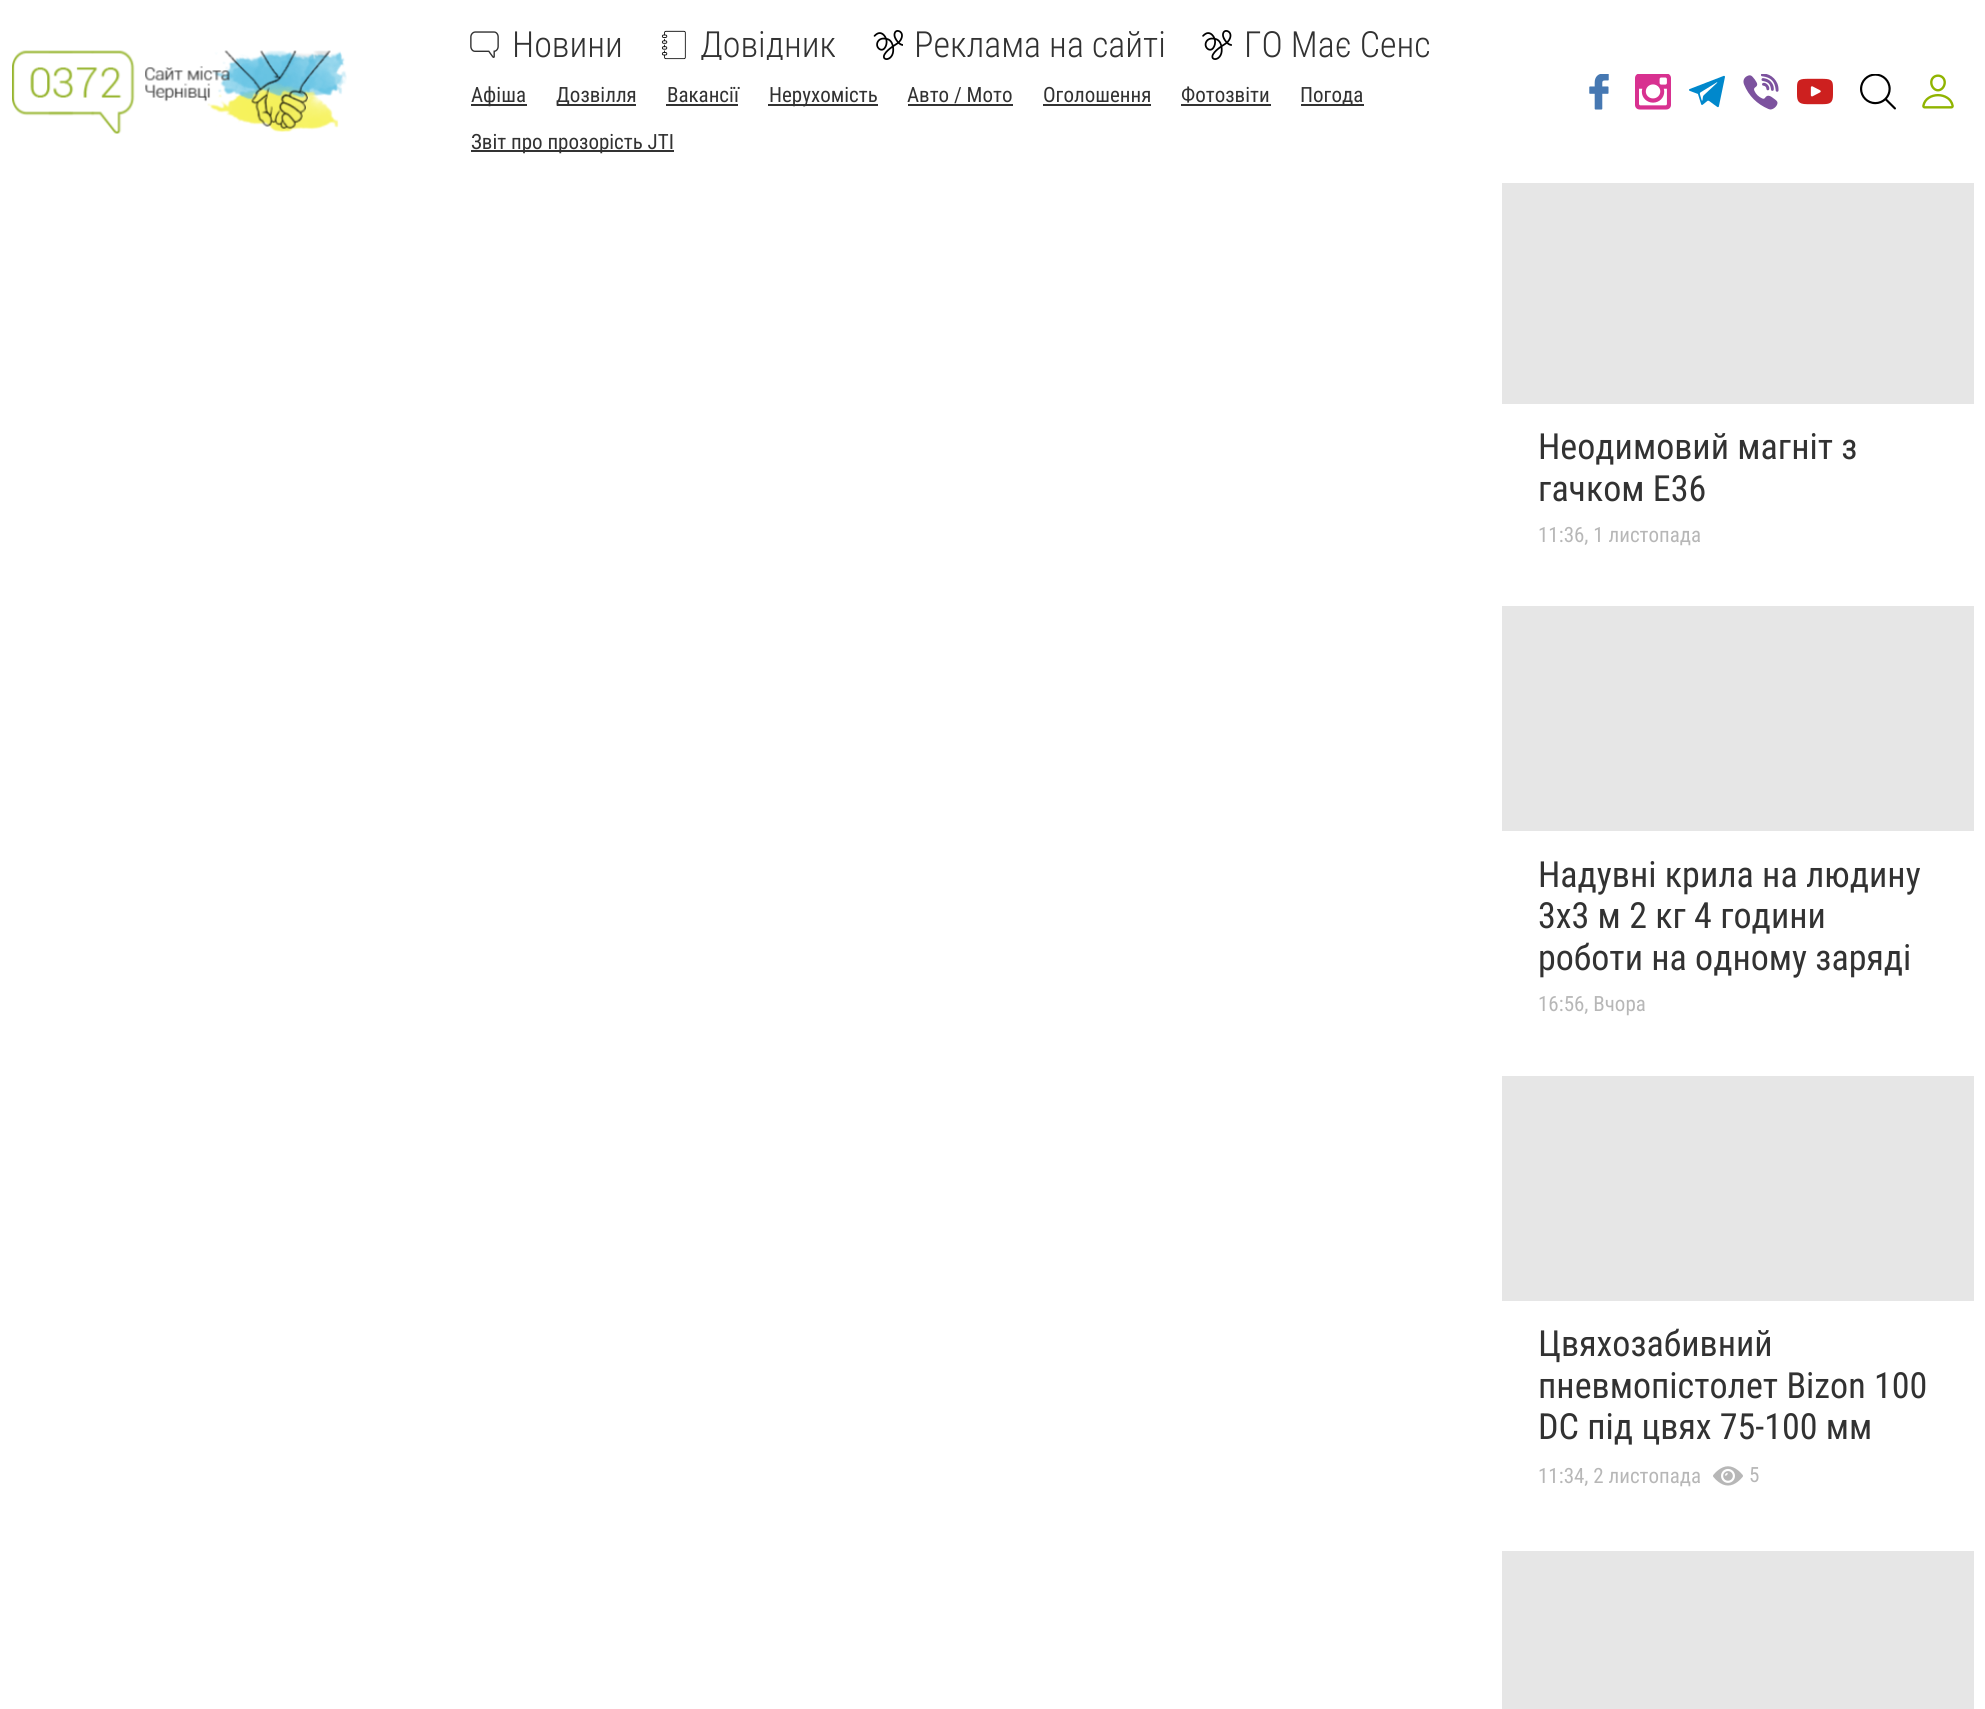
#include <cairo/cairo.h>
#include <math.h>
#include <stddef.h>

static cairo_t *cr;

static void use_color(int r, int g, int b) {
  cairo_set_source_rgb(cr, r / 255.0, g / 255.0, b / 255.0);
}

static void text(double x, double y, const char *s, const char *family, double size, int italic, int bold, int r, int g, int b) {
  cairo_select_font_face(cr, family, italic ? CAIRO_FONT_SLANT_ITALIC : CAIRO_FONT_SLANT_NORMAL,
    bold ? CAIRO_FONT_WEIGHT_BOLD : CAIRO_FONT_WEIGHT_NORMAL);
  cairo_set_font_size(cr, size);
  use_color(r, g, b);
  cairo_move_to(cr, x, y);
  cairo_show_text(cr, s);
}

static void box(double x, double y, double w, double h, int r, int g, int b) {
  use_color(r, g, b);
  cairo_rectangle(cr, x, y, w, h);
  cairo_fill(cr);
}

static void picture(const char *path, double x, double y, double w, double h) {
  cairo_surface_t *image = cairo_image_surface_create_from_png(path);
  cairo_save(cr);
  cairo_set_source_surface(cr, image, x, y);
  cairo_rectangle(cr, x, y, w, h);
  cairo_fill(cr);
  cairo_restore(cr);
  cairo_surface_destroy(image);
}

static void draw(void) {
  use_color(255, 255, 255);
  cairo_paint(cr);
  picture("img_01.png", 12, 50, 335, 84);
  picture("img_02.png", 470, 31, 29, 27);
  picture("img_03.png", 661, 30, 25, 30);
  picture("img_04.png", 873, 30, 30, 30);
  picture("img_05.png", 1202, 30, 30, 30);
  box(471, 104, 56, 2, 50, 50, 50);
  box(557, 104, 79, 2, 50, 50, 50);
  box(666, 104, 72, 2, 50, 50, 50);
  box(768, 104, 110, 2, 50, 50, 50);
  box(908, 104, 105, 2, 50, 50, 50);
  box(1043, 104, 108, 2, 50, 50, 50);
  box(1181, 104, 90, 2, 50, 50, 50);
  box(1301, 104, 63, 2, 50, 50, 50);
  box(471, 150, 203, 2, 50, 50, 50);
  picture("img_06.png", 1589, 74, 20, 36);
  picture("img_07.png", 1635, 74, 36, 36);
  picture("img_08.png", 1689, 75, 36, 33);
  picture("img_09.png", 1743, 74, 36, 36);
  picture("img_10.png", 1797, 78, 36, 27);
  picture("img_11.png", 1860, 74, 36, 36);
  picture("img_12.png", 1922, 74, 32, 35);
  box(1502, 183, 472, 221, 230, 230, 230);
  box(1502, 606, 472, 225, 230, 230, 230);
  box(1502, 1076, 472, 225, 230, 230, 230);
  picture("img_13.png", 1713, 1466, 30, 20);
  box(1502, 1551, 472, 158, 230, 230, 230);
  text(512, 57, "Новини", "Roboto Condensed Light", 36, 0, 0, 50, 50, 50);
  cairo_save(cr);
  cairo_rectangle(cr, 659, 30, 178, 30);
  cairo_clip(cr);
  text(700, 57, "Довідник", "Roboto Condensed Light", 36, 0, 0, 50, 50, 50);
  cairo_restore(cr);
  text(914, 57, "Реклама на сайті", "Roboto Condensed Light", 36, 0, 0, 50, 50, 50);
  text(1244, 57, "ГО Має Сенс", "Roboto Condensed Light", 36, 0, 0, 50, 50, 50);
  text(471, 102, "Афіша", "Roboto Condensed", 21, 0, 0, 50, 50, 50);
  text(556, 102, "Дозвілля", "Roboto Condensed", 21, 0, 0, 50, 50, 50);
  text(667, 102, "Вакансії", "Roboto Condensed", 21, 0, 0, 50, 50, 50);
  text(769, 102, "Нерухомість", "Roboto Condensed", 21, 0, 0, 50, 50, 50);
  text(907, 102, "Авто / Мото", "Roboto Condensed", 21, 0, 0, 50, 50, 50);
  text(1043, 102, "Оголошення", "Roboto Condensed", 21, 0, 0, 50, 50, 50);
  text(1181, 102, "Фотозвіти", "Roboto Condensed", 21, 0, 0, 50, 50, 50);
  text(1300, 102, "Погода", "Roboto Condensed", 21, 0, 0, 50, 50, 50);
  text(471, 149, "Звіт про прозорість JTI", "Roboto Condensed", 21, 0, 0, 50, 50, 50);
  text(1538, 459, "Неодимовий магніт з", "Roboto Condensed", 36, 0, 0, 50, 50, 50);
  text(1538, 501, "гачком E36", "Roboto Condensed", 36, 0, 0, 50, 50, 50);
  text(1538, 542, "11:36, 1 листопада", "Roboto Condensed", 21, 0, 0, 183, 183, 183);
  text(1538, 887, "Надувні крила на людину", "Roboto Condensed", 36, 0, 0, 50, 50, 50);
  text(1538, 928, "3х3 м 2 кг 4 години", "Roboto Condensed", 36, 0, 0, 50, 50, 50);
  text(1538, 970, "роботи на одному заряді", "Roboto Condensed", 36, 0, 0, 50, 50, 50);
  text(1538, 1011, "16:56, Вчора", "Roboto Condensed", 21, 0, 0, 183, 183, 183);
  text(1538, 1356, "Цвяхозабивний", "Roboto Condensed", 36, 0, 0, 50, 50, 50);
  text(1538, 1398, "пневмопістолет Bizon 100", "Roboto Condensed", 36, 0, 0, 50, 50, 50);
  text(1538, 1439, "DC під цвях 75-100 мм", "Roboto Condensed", 36, 0, 0, 50, 50, 50);
  text(1538, 1483, "11:34, 2 листопада", "Roboto Condensed", 21, 0, 0, 183, 183, 183);
  text(1749, 1482, "5", "Roboto Condensed", 21, 0, 0, 183, 183, 183);
}

int main(void) {
  cairo_surface_t *surface = cairo_image_surface_create(CAIRO_FORMAT_RGB24, 1985, 1709);
  cr = cairo_create(surface);
  cairo_font_options_t *options = cairo_font_options_create();
  cairo_font_options_set_hint_metrics(options, CAIRO_HINT_METRICS_OFF);
  cairo_font_options_set_hint_style(options, CAIRO_HINT_STYLE_NONE);
  cairo_set_font_options(cr, options);
  cairo_set_miter_limit(cr, 4);
  draw();
  cairo_surface_write_to_png(surface, "out.png");
  cairo_font_options_destroy(options);
  cairo_destroy(cr);
  cairo_surface_destroy(surface);
  return 0;
}
